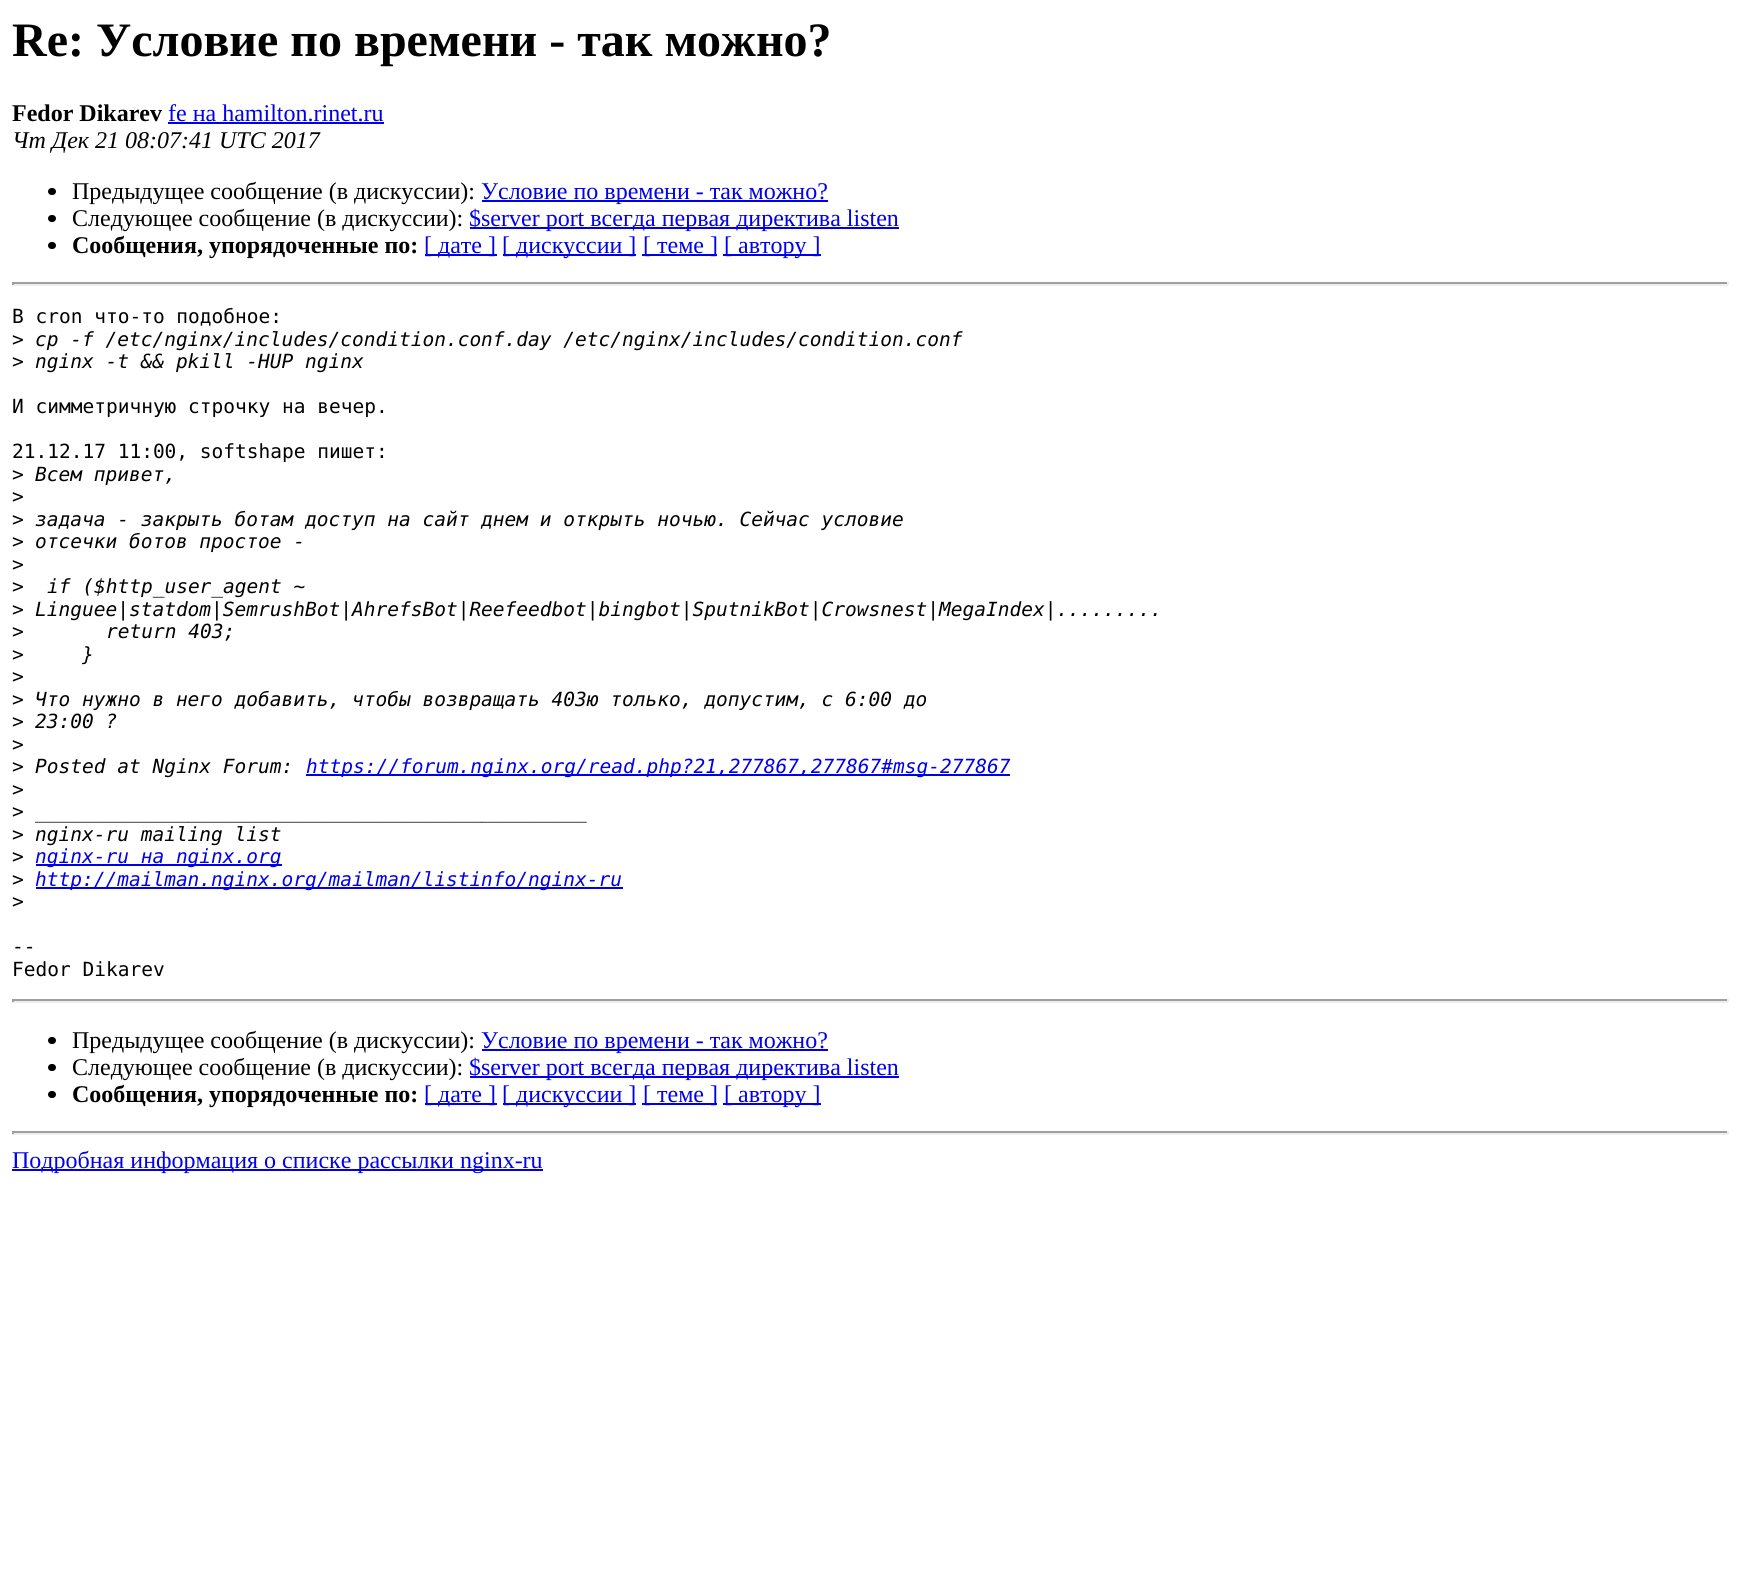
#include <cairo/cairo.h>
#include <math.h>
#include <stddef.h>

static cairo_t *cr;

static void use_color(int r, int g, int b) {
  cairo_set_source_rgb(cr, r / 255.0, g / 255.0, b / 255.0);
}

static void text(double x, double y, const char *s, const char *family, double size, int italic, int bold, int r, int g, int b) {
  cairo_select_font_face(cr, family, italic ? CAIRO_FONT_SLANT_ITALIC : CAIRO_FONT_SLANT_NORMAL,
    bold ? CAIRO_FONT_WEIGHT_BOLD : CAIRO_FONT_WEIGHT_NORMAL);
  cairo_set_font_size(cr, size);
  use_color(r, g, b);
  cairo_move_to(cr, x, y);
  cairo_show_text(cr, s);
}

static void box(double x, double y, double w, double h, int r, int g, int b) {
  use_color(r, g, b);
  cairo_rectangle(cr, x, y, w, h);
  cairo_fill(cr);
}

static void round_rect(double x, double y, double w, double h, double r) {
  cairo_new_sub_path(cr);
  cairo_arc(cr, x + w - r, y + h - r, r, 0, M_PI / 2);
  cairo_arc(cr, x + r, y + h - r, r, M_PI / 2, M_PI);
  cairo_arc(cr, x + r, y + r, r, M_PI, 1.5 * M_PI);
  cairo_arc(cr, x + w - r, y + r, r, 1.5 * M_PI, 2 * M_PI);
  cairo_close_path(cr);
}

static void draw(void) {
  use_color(255, 255, 255);
  cairo_paint(cr);
  box(168, 122, 216, 2, 0, 0, 238);
  use_color(0, 0, 0);
  round_rect(48, 188, 8, 7, 3.5);
  cairo_fill(cr);
  box(482, 200, 346, 2, 0, 0, 238);
  use_color(0, 0, 0);
  round_rect(48, 215, 8, 7, 3.5);
  cairo_fill(cr);
  box(470, 227, 429, 2, 0, 0, 238);
  use_color(0, 0, 0);
  round_rect(48, 242, 8, 7, 3.5);
  cairo_fill(cr);
  box(425, 254, 72, 2, 0, 0, 238);
  box(503, 254, 133, 2, 0, 0, 238);
  box(642, 254, 75, 2, 0, 0, 238);
  box(723, 254, 98, 2, 0, 0, 238);
  box(12, 282, 1716, 2, 159, 159, 159);
  box(1727, 282, 2, 3, 238, 238, 238);
  box(12, 284, 1716, 2, 238, 238, 238);
  box(12, 282, 2, 3, 159, 159, 159);
  box(306, 774, 704, 2, 0, 0, 238);
  box(36, 864, 246, 2, 0, 0, 238);
  box(36, 887, 587, 2, 0, 0, 238);
  box(12, 999, 1716, 2, 159, 159, 159);
  box(1727, 999, 2, 3, 238, 238, 238);
  box(12, 1001, 1716, 2, 238, 238, 238);
  box(12, 999, 2, 3, 159, 159, 159);
  use_color(0, 0, 0);
  round_rect(48, 1037, 8, 7, 3.5);
  cairo_fill(cr);
  box(482, 1049, 346, 2, 0, 0, 238);
  use_color(0, 0, 0);
  round_rect(48, 1064, 8, 7, 3.5);
  cairo_fill(cr);
  box(470, 1076, 429, 2, 0, 0, 238);
  use_color(0, 0, 0);
  round_rect(48, 1091, 8, 7, 3.5);
  cairo_fill(cr);
  box(425, 1103, 72, 2, 0, 0, 238);
  box(503, 1103, 133, 2, 0, 0, 238);
  box(642, 1103, 75, 2, 0, 0, 238);
  box(723, 1103, 98, 2, 0, 0, 238);
  box(12, 1131, 1716, 2, 159, 159, 159);
  box(1727, 1131, 2, 3, 238, 238, 238);
  box(12, 1133, 1716, 2, 238, 238, 238);
  box(12, 1131, 2, 3, 159, 159, 159);
  box(12, 1169, 531, 2, 0, 0, 238);
  text(12, 56, "Re: Условие по времени - так можно?", "Liberation Serif", 48, 0, 1, 0, 0, 0);
  text(12, 121, "Fedor Dikarev", "Liberation Serif", 24, 0, 1, 0, 0, 0);
  text(168, 121, "fe на hamilton.rinet.ru", "Liberation Serif", 24, 0, 0, 0, 0, 238);
  text(12, 148, "Чт Дек 21 08:07:41 UTC 2017", "Liberation Serif", 24, 1, 0, 0, 0, 0);
  text(72, 199, "Предыдущее сообщение (в дискуссии):", "Liberation Serif", 24, 0, 0, 0, 0, 0);
  text(481, 199, "Условие по времени - так можно?", "Liberation Serif", 24, 0, 0, 0, 0, 238);
  text(72, 226, "Следующее сообщение (в дискуссии):", "Liberation Serif", 24, 0, 0, 0, 0, 0);
  text(469, 226, "$server port всегда первая директива listen", "Liberation Serif", 24, 0, 0, 0, 0, 238);
  text(72, 253, "Сообщения, упорядоченные по:", "Liberation Serif", 24, 0, 1, 0, 0, 0);
  text(424, 253, "[ дате ]", "Liberation Serif", 24, 0, 0, 0, 0, 238);
  text(502, 253, "[ дискуссии ]", "Liberation Serif", 24, 0, 0, 0, 0, 238);
  text(643, 253, "[ теме ]", "Liberation Serif", 24, 0, 0, 0, 0, 238);
  text(724, 253, "[ автору ]", "Liberation Serif", 24, 0, 0, 0, 0, 238);
  text(12, 323, "В cron что-то подобное:", "DejaVu Sans Mono", 19.5, 0, 0, 0, 0, 0);
  text(12, 346, ">", "DejaVu Sans Mono", 19.5, 0, 0, 0, 0, 0);
  text(35, 346, "cp -f /etc/nginx/includes/condition.conf.day /etc/nginx/includes/condition.conf", "DejaVu Sans Mono", 19.5, 1, 0, 0, 0, 0);
  text(12, 368, ">", "DejaVu Sans Mono", 19.5, 0, 0, 0, 0, 0);
  text(35, 368, "nginx -t && pkill -HUP nginx", "DejaVu Sans Mono", 19.5, 1, 0, 0, 0, 0);
  text(12, 413, "И симметричную строчку на вечер.", "DejaVu Sans Mono", 19.5, 0, 0, 0, 0, 0);
  text(12, 458, "21.12.17 11:00, softshape пишет:", "DejaVu Sans Mono", 19.5, 0, 0, 0, 0, 0);
  text(12, 481, ">", "DejaVu Sans Mono", 19.5, 0, 0, 0, 0, 0);
  text(35, 481, "Всем привет,", "DejaVu Sans Mono", 19.5, 1, 0, 0, 0, 0);
  text(12, 503, ">", "DejaVu Sans Mono", 19.5, 0, 0, 0, 0, 0);
  text(12, 526, ">", "DejaVu Sans Mono", 19.5, 0, 0, 0, 0, 0);
  text(35, 526, "задача - закрыть ботам доступ на сайт днем и открыть ночью. Сейчас условие", "DejaVu Sans Mono", 19.5, 1, 0, 0, 0, 0);
  text(12, 548, ">", "DejaVu Sans Mono", 19.5, 0, 0, 0, 0, 0);
  text(35, 548, "отсечки ботов простое -", "DejaVu Sans Mono", 19.5, 1, 0, 0, 0, 0);
  text(12, 571, ">", "DejaVu Sans Mono", 19.5, 0, 0, 0, 0, 0);
  text(12, 593, ">", "DejaVu Sans Mono", 19.5, 0, 0, 0, 0, 0);
  text(47, 593, "if ($http_user_agent ~", "DejaVu Sans Mono", 19.5, 1, 0, 0, 0, 0);
  text(12, 616, ">", "DejaVu Sans Mono", 19.5, 0, 0, 0, 0, 0);
  text(35, 616, "Linguee|statdom|SemrushBot|AhrefsBot|Reefeedbot|bingbot|SputnikBot|Crowsnest|MegaIndex|.........", "DejaVu Sans Mono", 19.5, 1, 0, 0, 0, 0);
  text(12, 638, ">", "DejaVu Sans Mono", 19.5, 0, 0, 0, 0, 0);
  text(106, 638, "return 403;", "DejaVu Sans Mono", 19.5, 1, 0, 0, 0, 0);
  text(12, 661, ">", "DejaVu Sans Mono", 19.5, 0, 0, 0, 0, 0);
  text(82, 661, "}", "DejaVu Sans Mono", 19.5, 1, 0, 0, 0, 0);
  text(12, 683, ">", "DejaVu Sans Mono", 19.5, 0, 0, 0, 0, 0);
  text(12, 706, ">", "DejaVu Sans Mono", 19.5, 0, 0, 0, 0, 0);
  text(35, 706, "Что нужно в него добавить, чтобы возвращать 403ю только, допустим, с 6:00 до", "DejaVu Sans Mono", 19.5, 1, 0, 0, 0, 0);
  text(12, 728, ">", "DejaVu Sans Mono", 19.5, 0, 0, 0, 0, 0);
  text(35, 728, "23:00 ?", "DejaVu Sans Mono", 19.5, 1, 0, 0, 0, 0);
  text(12, 751, ">", "DejaVu Sans Mono", 19.5, 0, 0, 0, 0, 0);
  text(12, 773, ">", "DejaVu Sans Mono", 19.5, 0, 0, 0, 0, 0);
  text(35, 773, "Posted at Nginx Forum:", "DejaVu Sans Mono", 19.5, 1, 0, 0, 0, 0);
  text(306, 773, "https://forum.nginx.org/read.php?21,277867,277867#msg-277867", "DejaVu Sans Mono", 19.5, 1, 0, 0, 0, 238);
  text(12, 796, ">", "DejaVu Sans Mono", 19.5, 0, 0, 0, 0, 0);
  text(12, 818, ">", "DejaVu Sans Mono", 19.5, 0, 0, 0, 0, 0);
  text(35, 818, "_______________________________________________", "DejaVu Sans Mono", 19.5, 1, 0, 0, 0, 0);
  text(12, 841, ">", "DejaVu Sans Mono", 19.5, 0, 0, 0, 0, 0);
  text(35, 841, "nginx-ru mailing list", "DejaVu Sans Mono", 19.5, 1, 0, 0, 0, 0);
  text(12, 863, ">", "DejaVu Sans Mono", 19.5, 0, 0, 0, 0, 0);
  text(35, 863, "nginx-ru на nginx.org", "DejaVu Sans Mono", 19.5, 1, 0, 0, 0, 238);
  text(12, 886, ">", "DejaVu Sans Mono", 19.5, 0, 0, 0, 0, 0);
  text(35, 886, "http://mailman.nginx.org/mailman/listinfo/nginx-ru", "DejaVu Sans Mono", 19.5, 1, 0, 0, 0, 238);
  text(12, 908, ">", "DejaVu Sans Mono", 19.5, 0, 0, 0, 0, 0);
  text(12, 953, "--", "DejaVu Sans Mono", 19.5, 0, 0, 0, 0, 0);
  text(12, 976, "Fedor Dikarev", "DejaVu Sans Mono", 19.5, 0, 0, 0, 0, 0);
  text(72, 1048, "Предыдущее сообщение (в дискуссии):", "Liberation Serif", 24, 0, 0, 0, 0, 0);
  text(481, 1048, "Условие по времени - так можно?", "Liberation Serif", 24, 0, 0, 0, 0, 238);
  text(72, 1075, "Следующее сообщение (в дискуссии):", "Liberation Serif", 24, 0, 0, 0, 0, 0);
  text(469, 1075, "$server port всегда первая директива listen", "Liberation Serif", 24, 0, 0, 0, 0, 238);
  text(72, 1102, "Сообщения, упорядоченные по:", "Liberation Serif", 24, 0, 1, 0, 0, 0);
  text(424, 1102, "[ дате ]", "Liberation Serif", 24, 0, 0, 0, 0, 238);
  text(502, 1102, "[ дискуссии ]", "Liberation Serif", 24, 0, 0, 0, 0, 238);
  text(643, 1102, "[ теме ]", "Liberation Serif", 24, 0, 0, 0, 0, 238);
  text(724, 1102, "[ автору ]", "Liberation Serif", 24, 0, 0, 0, 0, 238);
  text(12, 1168, "Подробная информация о списке рассылки nginx-ru", "Liberation Serif", 24, 0, 0, 0, 0, 238);
}

int main(void) {
  cairo_surface_t *surface = cairo_image_surface_create(CAIRO_FORMAT_RGB24, 1739, 1575);
  cr = cairo_create(surface);
  cairo_font_options_t *options = cairo_font_options_create();
  cairo_font_options_set_hint_metrics(options, CAIRO_HINT_METRICS_OFF);
  cairo_font_options_set_hint_style(options, CAIRO_HINT_STYLE_NONE);
  cairo_set_font_options(cr, options);
  cairo_set_miter_limit(cr, 4);
  draw();
  cairo_surface_write_to_png(surface, "out.png");
  cairo_font_options_destroy(options);
  cairo_destroy(cr);
  cairo_surface_destroy(surface);
  return 0;
}
